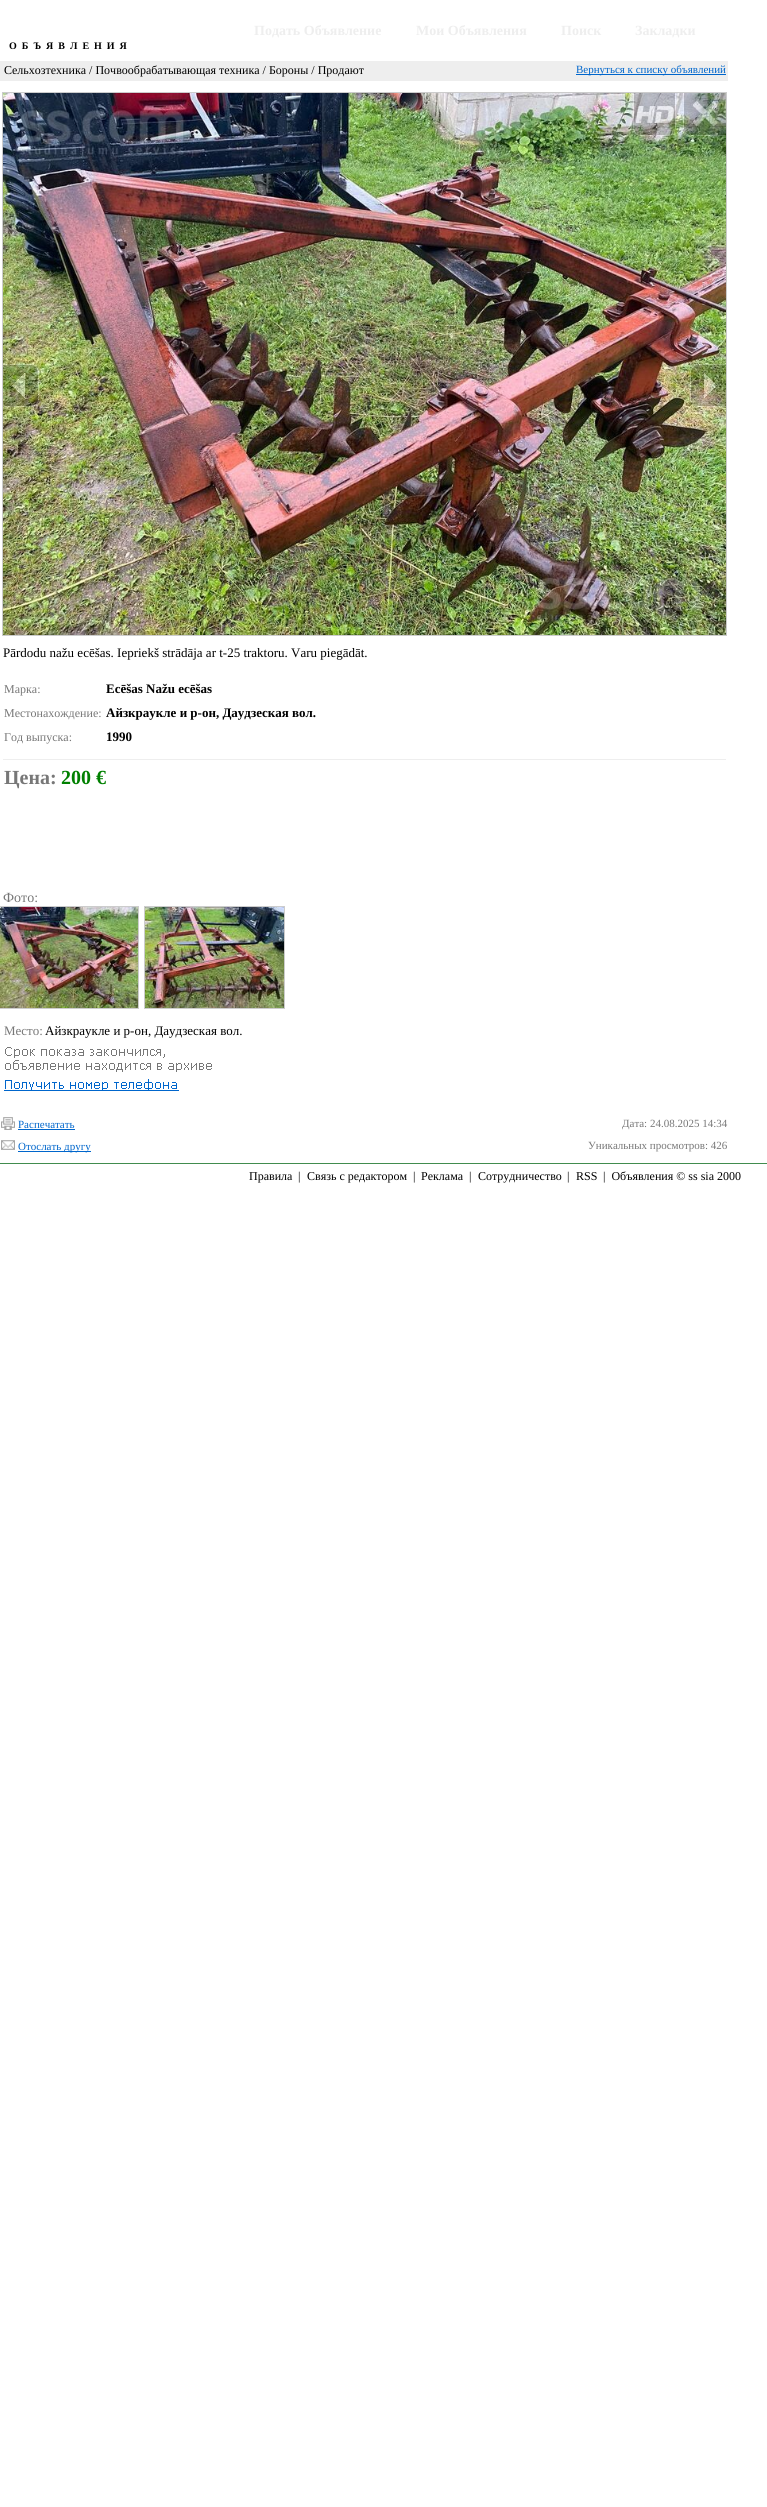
#include <cairo/cairo.h>
#include <math.h>
#include <stddef.h>

static cairo_t *cr;

static void use_color(int r, int g, int b) {
  cairo_set_source_rgb(cr, r / 255.0, g / 255.0, b / 255.0);
}

static void text(double x, double y, const char *s, const char *family, double size, int italic, int bold, int r, int g, int b) {
  cairo_select_font_face(cr, family, italic ? CAIRO_FONT_SLANT_ITALIC : CAIRO_FONT_SLANT_NORMAL,
    bold ? CAIRO_FONT_WEIGHT_BOLD : CAIRO_FONT_WEIGHT_NORMAL);
  cairo_set_font_size(cr, size);
  use_color(r, g, b);
  cairo_move_to(cr, x, y);
  cairo_show_text(cr, s);
}

static void spaced_text(double x, double y, const char *s, double letter, double word) {
  cairo_move_to(cr, x, y);
  while (*s) {
    char ch[5] = {0};
    int n = 0;
    do ch[n++] = *s++; while ((*s & 0xC0) == 0x80);
    cairo_show_text(cr, ch);
    cairo_rel_move_to(cr, letter + word * (*ch == ' '), 0);
  }
}

static void box(double x, double y, double w, double h, int r, int g, int b) {
  use_color(r, g, b);
  cairo_rectangle(cr, x, y, w, h);
  cairo_fill(cr);
}

static void picture(const char *path, double x, double y, double w, double h) {
  cairo_surface_t *image = cairo_image_surface_create_from_png(path);
  cairo_save(cr);
  cairo_set_source_surface(cr, image, x, y);
  cairo_rectangle(cr, x, y, w, h);
  cairo_fill(cr);
  cairo_restore(cr);
  cairo_surface_destroy(image);
}

static void draw(void) {
  use_color(255, 255, 255);
  cairo_paint(cr);
  box(0, 61, 728, 20, 238, 238, 238);
  box(576, 74, 150, 1, 0, 102, 204);
  cairo_rectangle(cr, 2.5, 92.5, 724, 543);
  use_color(204, 204, 204);
  cairo_set_line_width(cr, 1);
  cairo_stroke(cr);
  picture("img_01.png", 3, 93, 723, 542);
  picture("img_02.png", 633, 93, 43, 43);
  picture("img_03.png", 683, 93, 43, 43);
  picture("img_04.png", 3, 364, 36, 43);
  picture("img_05.png", 690, 364, 36, 43);
  box(3, 759, 723, 1, 238, 238, 238);
  cairo_rectangle(cr, -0.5, 906.5, 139, 102);
  use_color(204, 204, 204);
  cairo_stroke(cr);
  picture("img_06.png", 0, 907, 138, 101);
  cairo_rectangle(cr, 144.5, 906.5, 140, 102);
  cairo_stroke(cr);
  picture("img_07.png", 145, 907, 139, 101);
  picture("img_08.png", 5, 1047, 207, 25);
  picture("img_09.png", 4, 1079, 175, 12);
  picture("img_10.png", 1, 1117, 14, 13);
  box(18, 1129, 57, 1, 0, 102, 204);
  picture("img_11.png", 1, 1140, 14, 10);
  box(18, 1151, 73, 1, 0, 102, 204);
  box(0, 1163, 767, 1, 65, 140, 78);
  text(254, 35, "Подать Объявление", "Liberation Serif", 14, 0, 1, 238, 238, 238);
  text(416, 35, "Мои Объявления", "Liberation Serif", 14, 0, 1, 238, 238, 238);
  text(561, 35, "Поиск", "Liberation Serif", 14, 0, 1, 238, 238, 238);
  text(635, 35, "Закладки", "Liberation Serif", 14, 0, 1, 238, 238, 238);
  cairo_set_font_size(cr, 10);
  use_color(0, 0, 0);
  spaced_text(9, 49, "ОБЪЯВЛЕНИЯ", 5, 0);
  text(4, 74, "Сельхозтехника / Почвообрабатывающая техника / Бороны / Продают", "Liberation Serif", 12, 0, 0, 0, 0, 0);
  text(576, 73, "Вернуться к списку объявлений", "Liberation Serif", 11, 0, 0, 0, 102, 204);
  text(3, 657, "Pārdodu nažu ecēšas. Iepriekš strādāja ar t-25 traktoru. Varu piegādāt.", "Liberation Serif", 13, 0, 0, 0, 0, 0);
  text(4, 693, "Марка:", "Liberation Serif", 12, 0, 0, 119, 119, 119);
  text(106, 693, "Ecēšas Nažu ecēšas", "Liberation Serif", 13, 0, 1, 0, 0, 0);
  text(4, 717, "Местонахождение:", "Liberation Serif", 12, 0, 0, 119, 119, 119);
  text(106, 717, "Айзкраукле и р-он, Даудзеская вол.", "Liberation Serif", 13, 0, 1, 0, 0, 0);
  text(4, 741, "Год выпуска:", "Liberation Serif", 12, 0, 0, 119, 119, 119);
  text(106, 741, "1990", "Liberation Serif", 13, 0, 1, 0, 0, 0);
  text(4, 784, "Цена:", "Liberation Serif", 20, 0, 1, 119, 119, 119);
  text(61, 784, "200 €", "Liberation Serif", 20, 0, 1, 0, 128, 0);
  text(3, 902, "Фото:", "Liberation Serif", 14, 0, 0, 119, 119, 119);
  text(4, 1035, "Место:", "Liberation Serif", 13, 0, 0, 119, 119, 119);
  text(45, 1035, "Айзкраукле и р-он, Даудзеская вол.", "Liberation Serif", 13, 0, 0, 0, 0, 0);
  text(18, 1128, "Распечатать", "Liberation Serif", 11, 0, 0, 0, 102, 204);
  text(622, 1127, "Дата: 24.08.2025 14:34", "Liberation Serif", 11, 0, 0, 119, 119, 119);
  text(18, 1150, "Отослать другу", "Liberation Serif", 11, 0, 0, 0, 102, 204);
  text(588, 1149, "Уникальных просмотров: 426", "Liberation Serif", 11, 0, 0, 119, 119, 119);
  text(249, 1180, "Правила", "Liberation Serif", 12, 0, 0, 0, 0, 0);
  text(298, 1180, "|", "Liberation Serif", 12, 0, 0, 0, 0, 0);
  text(307, 1180, "Связь с редактором", "Liberation Serif", 12, 0, 0, 0, 0, 0);
  text(413, 1180, "|", "Liberation Serif", 12, 0, 0, 0, 0, 0);
  text(421, 1180, "Реклама", "Liberation Serif", 12, 0, 0, 0, 0, 0);
  text(469, 1180, "|", "Liberation Serif", 12, 0, 0, 0, 0, 0);
  text(478, 1180, "Сотрудничество", "Liberation Serif", 12, 0, 0, 0, 0, 0);
  text(567, 1180, "|", "Liberation Serif", 12, 0, 0, 0, 0, 0);
  text(576, 1180, "RSS", "Liberation Serif", 12, 0, 0, 0, 0, 0);
  text(603, 1180, "|  Объявления © ss sia 2000", "Liberation Serif", 12, 0, 0, 0, 0, 0);
}

int main(void) {
  cairo_surface_t *surface = cairo_image_surface_create(CAIRO_FORMAT_RGB24, 767, 2507);
  cr = cairo_create(surface);
  cairo_font_options_t *options = cairo_font_options_create();
  cairo_font_options_set_hint_metrics(options, CAIRO_HINT_METRICS_OFF);
  cairo_font_options_set_hint_style(options, CAIRO_HINT_STYLE_NONE);
  cairo_set_font_options(cr, options);
  cairo_set_miter_limit(cr, 4);
  draw();
  cairo_surface_write_to_png(surface, "out.png");
  cairo_font_options_destroy(options);
  cairo_destroy(cr);
  cairo_surface_destroy(surface);
  return 0;
}
